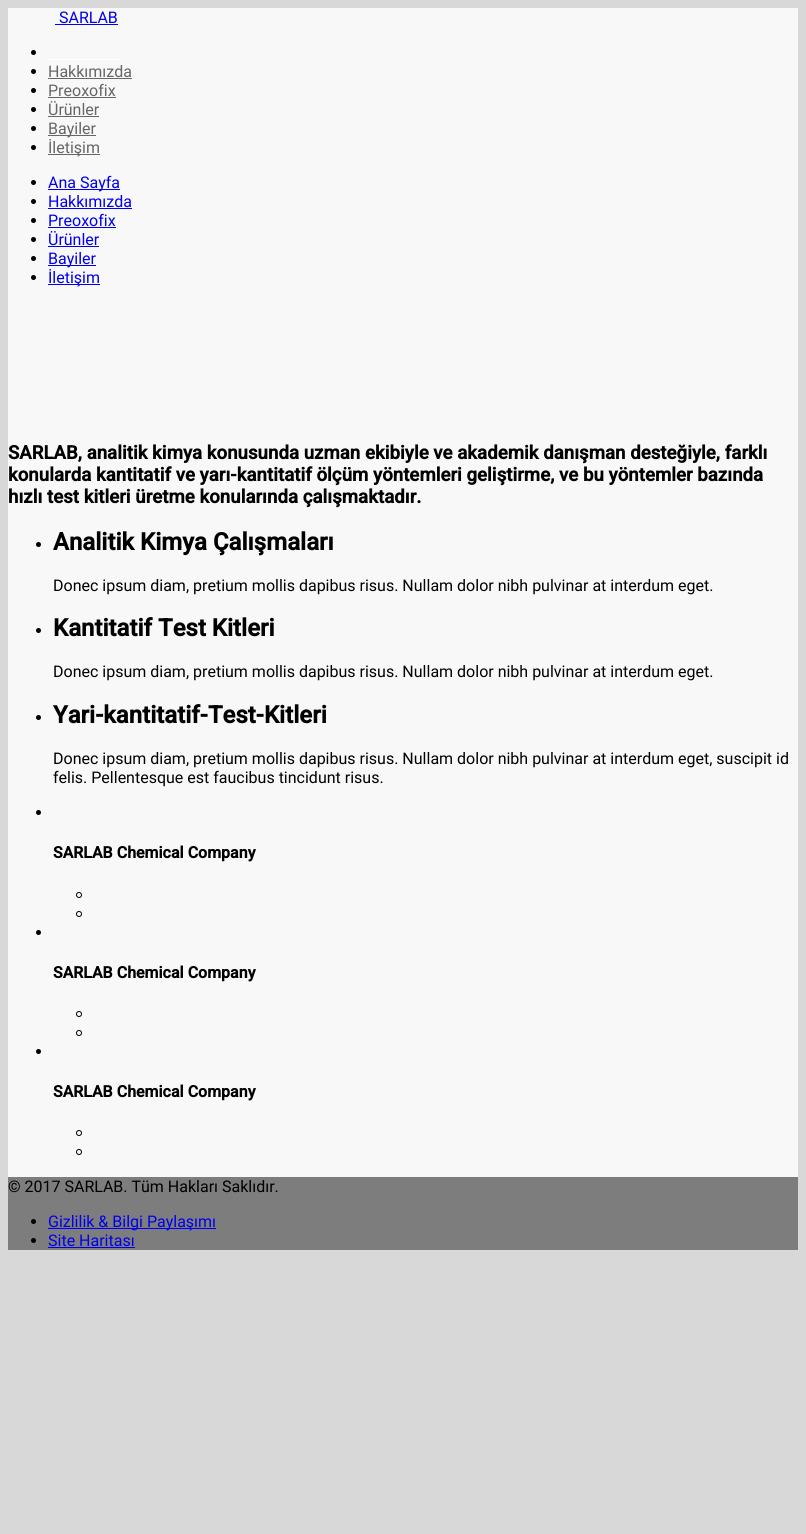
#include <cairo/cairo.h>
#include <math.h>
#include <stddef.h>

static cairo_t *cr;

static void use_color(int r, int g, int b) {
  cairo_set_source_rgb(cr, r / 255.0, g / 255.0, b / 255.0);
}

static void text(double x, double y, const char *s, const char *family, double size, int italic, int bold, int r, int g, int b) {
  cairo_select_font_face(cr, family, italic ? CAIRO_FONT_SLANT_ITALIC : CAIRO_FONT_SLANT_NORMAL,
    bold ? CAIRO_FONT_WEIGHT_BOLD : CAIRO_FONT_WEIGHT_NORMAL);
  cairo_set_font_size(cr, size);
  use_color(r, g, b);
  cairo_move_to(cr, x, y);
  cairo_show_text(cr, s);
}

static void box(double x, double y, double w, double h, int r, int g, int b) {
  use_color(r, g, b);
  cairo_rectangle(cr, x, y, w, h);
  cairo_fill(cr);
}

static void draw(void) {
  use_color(216, 216, 216);
  cairo_paint(cr);
  box(8, 8, 790, 1169, 248, 248, 248);
  box(55, 24, 63, 1, 0, 0, 238);
  use_color(0, 0, 0);
  cairo_arc(cr, 33.5, 52.5, 2.5, 0, 2 * M_PI);
  cairo_fill(cr);
  box(48, 59, 72, 1, 255, 255, 255);
  use_color(0, 0, 0);
  cairo_arc(cr, 33.5, 71.5, 2.5, 0, 2 * M_PI);
  cairo_fill(cr);
  box(48, 78, 84, 1, 102, 102, 102);
  use_color(0, 0, 0);
  cairo_arc(cr, 33.5, 90.5, 2.5, 0, 2 * M_PI);
  cairo_fill(cr);
  box(48, 97, 68, 1, 102, 102, 102);
  use_color(0, 0, 0);
  cairo_arc(cr, 33.5, 109.5, 2.5, 0, 2 * M_PI);
  cairo_fill(cr);
  box(48, 116, 51, 1, 102, 102, 102);
  use_color(0, 0, 0);
  cairo_arc(cr, 33.5, 128.5, 2.5, 0, 2 * M_PI);
  cairo_fill(cr);
  box(48, 135, 48, 1, 102, 102, 102);
  use_color(0, 0, 0);
  cairo_arc(cr, 33.5, 147.5, 2.5, 0, 2 * M_PI);
  cairo_fill(cr);
  box(48, 154, 52, 1, 102, 102, 102);
  use_color(0, 0, 0);
  cairo_arc(cr, 33.5, 182.5, 2.5, 0, 2 * M_PI);
  cairo_fill(cr);
  box(48, 189, 72, 1, 0, 0, 238);
  use_color(0, 0, 0);
  cairo_arc(cr, 33.5, 201.5, 2.5, 0, 2 * M_PI);
  cairo_fill(cr);
  box(48, 208, 84, 1, 0, 0, 238);
  use_color(0, 0, 0);
  cairo_arc(cr, 33.5, 220.5, 2.5, 0, 2 * M_PI);
  cairo_fill(cr);
  box(48, 227, 68, 1, 0, 0, 238);
  use_color(0, 0, 0);
  cairo_arc(cr, 33.5, 239.5, 2.5, 0, 2 * M_PI);
  cairo_fill(cr);
  box(48, 246, 51, 1, 0, 0, 238);
  use_color(0, 0, 0);
  cairo_arc(cr, 33.5, 258.5, 2.5, 0, 2 * M_PI);
  cairo_fill(cr);
  box(48, 265, 48, 1, 0, 0, 238);
  use_color(0, 0, 0);
  cairo_arc(cr, 33.5, 277.5, 2.5, 0, 2 * M_PI);
  cairo_fill(cr);
  box(48, 284, 52, 1, 0, 0, 238);
  use_color(0, 0, 0);
  cairo_arc(cr, 38.5, 544.5, 2.5, 0, 2 * M_PI);
  cairo_fill(cr);
  cairo_arc(cr, 38.5, 630.5, 2.5, 0, 2 * M_PI);
  cairo_fill(cr);
  cairo_arc(cr, 38.5, 717.5, 2.5, 0, 2 * M_PI);
  cairo_fill(cr);
  cairo_arc(cr, 38.5, 812.5, 2.5, 0, 2 * M_PI);
  cairo_fill(cr);
  cairo_arc(cr, 79, 895, 2.5, 0, 2 * M_PI);
  cairo_set_line_width(cr, 1);
  cairo_stroke(cr);
  cairo_arc(cr, 79, 914, 2.5, 0, 2 * M_PI);
  cairo_stroke(cr);
  cairo_arc(cr, 38.5, 932.5, 2.5, 0, 2 * M_PI);
  cairo_fill(cr);
  cairo_arc(cr, 79, 1014, 2.5, 0, 2 * M_PI);
  cairo_stroke(cr);
  cairo_arc(cr, 79, 1033, 2.5, 0, 2 * M_PI);
  cairo_stroke(cr);
  cairo_arc(cr, 38.5, 1051.5, 2.5, 0, 2 * M_PI);
  cairo_fill(cr);
  cairo_arc(cr, 79, 1133, 2.5, 0, 2 * M_PI);
  cairo_stroke(cr);
  cairo_arc(cr, 79, 1152, 2.5, 0, 2 * M_PI);
  cairo_stroke(cr);
  box(8, 1177, 790, 73, 125, 125, 125);
  use_color(0, 0, 0);
  cairo_arc(cr, 33.5, 1221.5, 2.5, 0, 2 * M_PI);
  cairo_fill(cr);
  box(48, 1228, 168, 1, 0, 0, 238);
  use_color(0, 0, 0);
  cairo_arc(cr, 33.5, 1240.5, 2.5, 0, 2 * M_PI);
  cairo_fill(cr);
  box(48, 1247, 87, 1, 0, 0, 238);
  text(59, 23, "SARLAB", "Roboto", 16, 0, 0, 0, 0, 238);
  text(48, 77, "Hakkımızda", "Roboto", 16, 0, 0, 102, 102, 102);
  text(48, 96, "Preoxofix", "Roboto", 16, 0, 0, 102, 102, 102);
  text(48, 115, "Ürünler", "Roboto", 16, 0, 0, 102, 102, 102);
  text(48, 134, "Bayiler", "Roboto", 16, 0, 0, 102, 102, 102);
  text(48, 153, "İletişim", "Roboto", 16, 0, 0, 102, 102, 102);
  text(48, 188, "Ana Sayfa", "Roboto", 16, 0, 0, 0, 0, 238);
  text(48, 207, "Hakkımızda", "Roboto", 16, 0, 0, 0, 0, 238);
  text(48, 226, "Preoxofix", "Roboto", 16, 0, 0, 0, 0, 238);
  text(48, 245, "Ürünler", "Roboto", 16, 0, 0, 0, 0, 238);
  text(48, 264, "Bayiler", "Roboto", 16, 0, 0, 0, 0, 238);
  text(48, 283, "İletişim", "Roboto", 16, 0, 0, 0, 0, 238);
  text(8, 459, "SARLAB, analitik kimya konusunda uzman ekibiyle ve akademik danışman desteğiyle, farklı", "Roboto", 18.7, 0, 1, 0, 0, 0);
  text(8, 481, "konularda kantitatif ve yarı-kantitatif ölçüm yöntemleri geliştirme, ve bu yöntemler bazında", "Roboto", 18.7, 0, 1, 0, 0, 0);
  text(8, 503, "hızlı test kitleri üretme konularında çalışmaktadır.", "Roboto", 18.7, 0, 1, 0, 0, 0);
  text(53, 550, "Analitik Kimya Çalışmaları", "Roboto", 24, 0, 1, 0, 0, 0);
  text(53, 591, "Donec ipsum diam, pretium mollis dapibus risus. Nullam dolor nibh pulvinar at interdum eget.", "Roboto", 16, 0, 0, 0, 0, 0);
  text(53, 636, "Kantitatif Test Kitleri", "Roboto", 24, 0, 1, 0, 0, 0);
  text(53, 677, "Donec ipsum diam, pretium mollis dapibus risus. Nullam dolor nibh pulvinar at interdum eget.", "Roboto", 16, 0, 0, 0, 0, 0);
  text(53, 723, "Yari-kantitatif-Test-Kitleri", "Roboto", 24, 0, 1, 0, 0, 0);
  text(53, 764, "Donec ipsum diam, pretium mollis dapibus risus. Nullam dolor nibh pulvinar at interdum eget, suscipit id", "Roboto", 16, 0, 0, 0, 0, 0);
  text(53, 783, "felis. Pellentesque est faucibus tincidunt risus.", "Roboto", 16, 0, 0, 0, 0, 0);
  text(53, 858, "SARLAB Chemical Company", "Roboto", 16, 0, 1, 0, 0, 0);
  text(53, 978, "SARLAB Chemical Company", "Roboto", 16, 0, 1, 0, 0, 0);
  text(53, 1097, "SARLAB Chemical Company", "Roboto", 16, 0, 1, 0, 0, 0);
  text(8, 1192, "© 2017 SARLAB. Tüm Hakları Saklıdır.", "Roboto", 16, 0, 0, 0, 0, 0);
  text(48, 1227, "Gizlilik & Bilgi Paylaşımı", "Roboto", 16, 0, 0, 0, 0, 238);
  text(48, 1246, "Site Haritası", "Roboto", 16, 0, 0, 0, 0, 238);
}

int main(void) {
  cairo_surface_t *surface = cairo_image_surface_create(CAIRO_FORMAT_RGB24, 806, 1534);
  cr = cairo_create(surface);
  cairo_font_options_t *options = cairo_font_options_create();
  cairo_font_options_set_hint_metrics(options, CAIRO_HINT_METRICS_OFF);
  cairo_font_options_set_hint_style(options, CAIRO_HINT_STYLE_NONE);
  cairo_set_font_options(cr, options);
  cairo_set_miter_limit(cr, 4);
  draw();
  cairo_surface_write_to_png(surface, "out.png");
  cairo_font_options_destroy(options);
  cairo_destroy(cr);
  cairo_surface_destroy(surface);
  return 0;
}
